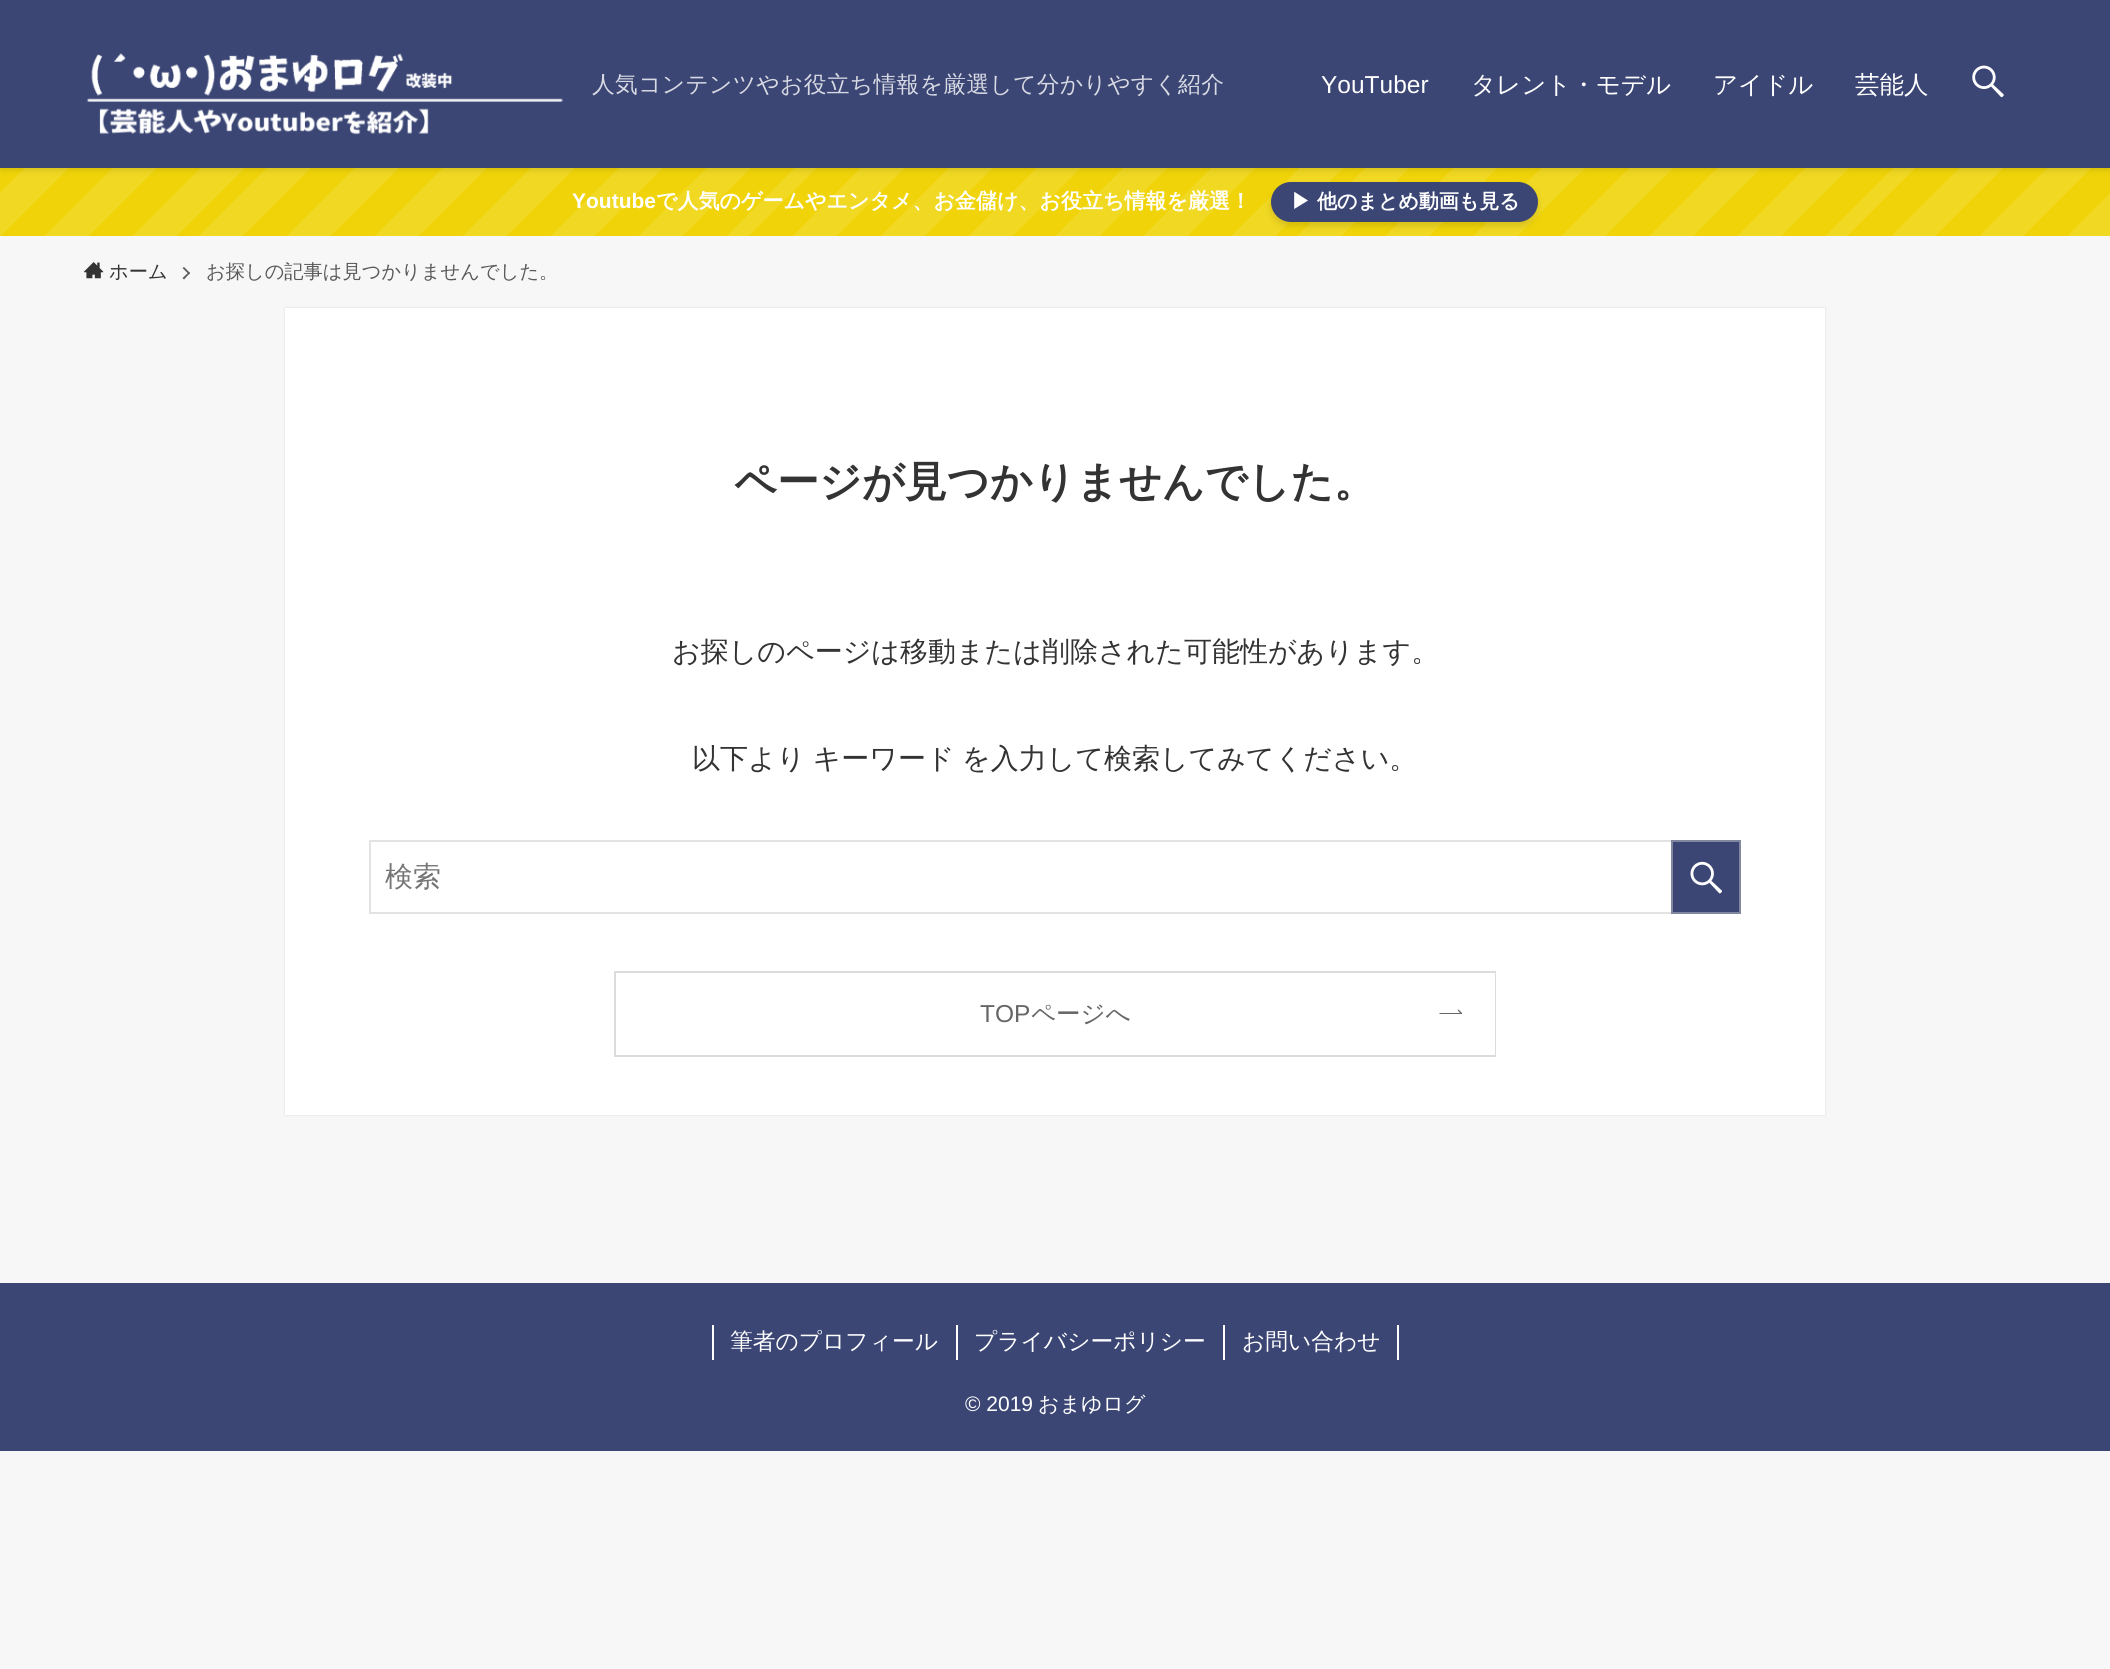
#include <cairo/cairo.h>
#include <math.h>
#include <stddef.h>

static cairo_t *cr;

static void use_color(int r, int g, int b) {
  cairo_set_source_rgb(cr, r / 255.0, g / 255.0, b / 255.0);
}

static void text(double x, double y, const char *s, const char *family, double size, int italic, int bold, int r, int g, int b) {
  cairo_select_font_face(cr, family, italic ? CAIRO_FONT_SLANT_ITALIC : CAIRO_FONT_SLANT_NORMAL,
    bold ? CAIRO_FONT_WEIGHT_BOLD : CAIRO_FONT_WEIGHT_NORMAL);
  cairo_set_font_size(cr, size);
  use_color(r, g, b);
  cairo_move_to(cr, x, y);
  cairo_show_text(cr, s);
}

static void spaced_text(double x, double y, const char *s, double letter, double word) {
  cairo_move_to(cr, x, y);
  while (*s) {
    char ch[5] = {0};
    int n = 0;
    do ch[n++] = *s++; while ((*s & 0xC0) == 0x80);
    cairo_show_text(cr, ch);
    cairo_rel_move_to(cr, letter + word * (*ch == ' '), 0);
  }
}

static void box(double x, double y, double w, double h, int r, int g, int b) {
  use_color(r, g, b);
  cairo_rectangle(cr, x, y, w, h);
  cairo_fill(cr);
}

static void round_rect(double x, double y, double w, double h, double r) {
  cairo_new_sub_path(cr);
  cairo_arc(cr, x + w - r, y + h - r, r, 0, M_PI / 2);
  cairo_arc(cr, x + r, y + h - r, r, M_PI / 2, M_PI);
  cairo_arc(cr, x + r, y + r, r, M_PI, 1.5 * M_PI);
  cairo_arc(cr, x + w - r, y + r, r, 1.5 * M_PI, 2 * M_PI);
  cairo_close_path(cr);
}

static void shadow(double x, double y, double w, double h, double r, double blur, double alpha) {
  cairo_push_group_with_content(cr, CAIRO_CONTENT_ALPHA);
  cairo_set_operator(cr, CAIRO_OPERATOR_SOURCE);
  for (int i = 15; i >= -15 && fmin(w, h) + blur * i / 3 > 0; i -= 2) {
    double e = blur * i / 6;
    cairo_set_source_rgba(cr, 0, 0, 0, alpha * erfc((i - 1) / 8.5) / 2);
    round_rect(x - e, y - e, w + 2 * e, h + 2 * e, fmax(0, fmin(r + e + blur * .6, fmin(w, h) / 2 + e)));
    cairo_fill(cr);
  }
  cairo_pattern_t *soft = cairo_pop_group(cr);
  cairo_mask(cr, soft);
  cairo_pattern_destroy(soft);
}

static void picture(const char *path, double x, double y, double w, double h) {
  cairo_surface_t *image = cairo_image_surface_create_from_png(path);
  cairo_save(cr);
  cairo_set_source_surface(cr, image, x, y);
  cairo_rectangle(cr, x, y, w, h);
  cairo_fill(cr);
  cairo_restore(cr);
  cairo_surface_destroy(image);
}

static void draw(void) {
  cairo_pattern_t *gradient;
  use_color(247, 247, 247);
  cairo_paint(cr);
  gradient = cairo_pattern_create_linear(1600, 747, 501, -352);
  cairo_pattern_add_color_stop_rgba(gradient, 0, 0.945, 0.847, 0.133, 1);
  cairo_pattern_add_color_stop_rgba(gradient, 0.01, 0.945, 0.847, 0.133, 1);
  cairo_pattern_add_color_stop_rgba(gradient, 0.01, 0.941, 0.831, 0.035, 1);
  cairo_pattern_add_color_stop_rgba(gradient, 0.01, 0.945, 0.847, 0.133, 1);
  cairo_pattern_add_color_stop_rgba(gradient, 0.02, 0.945, 0.847, 0.133, 1);
  cairo_pattern_add_color_stop_rgba(gradient, 0.02, 0.941, 0.831, 0.035, 1);
  cairo_pattern_add_color_stop_rgba(gradient, 0.03, 0.941, 0.831, 0.035, 1);
  cairo_pattern_add_color_stop_rgba(gradient, 0.03, 0.945, 0.847, 0.133, 1);
  cairo_pattern_add_color_stop_rgba(gradient, 0.03, 0.941, 0.831, 0.035, 1);
  cairo_pattern_add_color_stop_rgba(gradient, 0.04, 0.941, 0.831, 0.035, 1);
  cairo_pattern_add_color_stop_rgba(gradient, 0.04, 0.945, 0.847, 0.133, 1);
  cairo_pattern_add_color_stop_rgba(gradient, 0.05, 0.945, 0.847, 0.133, 1);
  cairo_pattern_add_color_stop_rgba(gradient, 0.05, 0.941, 0.831, 0.035, 1);
  cairo_pattern_add_color_stop_rgba(gradient, 0.05, 0.945, 0.847, 0.133, 1);
  cairo_pattern_add_color_stop_rgba(gradient, 0.06, 0.945, 0.847, 0.133, 1);
  cairo_pattern_add_color_stop_rgba(gradient, 0.06, 0.941, 0.831, 0.035, 1);
  cairo_pattern_add_color_stop_rgba(gradient, 0.07, 0.941, 0.831, 0.035, 1);
  cairo_pattern_add_color_stop_rgba(gradient, 0.07, 0.945, 0.847, 0.133, 1);
  cairo_pattern_add_color_stop_rgba(gradient, 0.07, 0.941, 0.831, 0.035, 1);
  cairo_pattern_add_color_stop_rgba(gradient, 0.08, 0.941, 0.831, 0.035, 1);
  cairo_pattern_add_color_stop_rgba(gradient, 0.08, 0.945, 0.847, 0.133, 1);
  cairo_pattern_add_color_stop_rgba(gradient, 0.09, 0.945, 0.847, 0.133, 1);
  cairo_pattern_add_color_stop_rgba(gradient, 0.09, 0.941, 0.831, 0.035, 1);
  cairo_pattern_add_color_stop_rgba(gradient, 0.09, 0.945, 0.847, 0.133, 1);
  cairo_pattern_add_color_stop_rgba(gradient, 0.1, 0.945, 0.847, 0.133, 1);
  cairo_pattern_add_color_stop_rgba(gradient, 0.1, 0.941, 0.831, 0.035, 1);
  cairo_pattern_add_color_stop_rgba(gradient, 0.11, 0.941, 0.831, 0.035, 1);
  cairo_pattern_add_color_stop_rgba(gradient, 0.11, 0.945, 0.847, 0.133, 1);
  cairo_pattern_add_color_stop_rgba(gradient, 0.11, 0.941, 0.831, 0.035, 1);
  cairo_pattern_add_color_stop_rgba(gradient, 0.12, 0.941, 0.831, 0.035, 1);
  cairo_pattern_add_color_stop_rgba(gradient, 0.12, 0.945, 0.847, 0.133, 1);
  cairo_pattern_add_color_stop_rgba(gradient, 0.13, 0.945, 0.847, 0.133, 1);
  cairo_pattern_add_color_stop_rgba(gradient, 0.13, 0.941, 0.831, 0.035, 1);
  cairo_pattern_add_color_stop_rgba(gradient, 0.14, 0.941, 0.831, 0.035, 1);
  cairo_pattern_add_color_stop_rgba(gradient, 0.14, 0.945, 0.847, 0.133, 1);
  cairo_pattern_add_color_stop_rgba(gradient, 0.14, 0.941, 0.831, 0.035, 1);
  cairo_pattern_add_color_stop_rgba(gradient, 0.15, 0.941, 0.831, 0.035, 1);
  cairo_pattern_add_color_stop_rgba(gradient, 0.15, 0.945, 0.847, 0.133, 1);
  cairo_pattern_add_color_stop_rgba(gradient, 0.16, 0.945, 0.847, 0.133, 1);
  cairo_pattern_add_color_stop_rgba(gradient, 0.16, 0.941, 0.831, 0.035, 1);
  cairo_pattern_add_color_stop_rgba(gradient, 0.16, 0.945, 0.847, 0.133, 1);
  cairo_pattern_add_color_stop_rgba(gradient, 0.17, 0.945, 0.847, 0.133, 1);
  cairo_pattern_add_color_stop_rgba(gradient, 0.17, 0.941, 0.831, 0.035, 1);
  cairo_pattern_add_color_stop_rgba(gradient, 0.18, 0.941, 0.831, 0.035, 1);
  cairo_pattern_add_color_stop_rgba(gradient, 0.18, 0.945, 0.847, 0.133, 1);
  cairo_pattern_add_color_stop_rgba(gradient, 0.18, 0.941, 0.831, 0.035, 1);
  cairo_pattern_add_color_stop_rgba(gradient, 0.19, 0.941, 0.831, 0.035, 1);
  cairo_pattern_add_color_stop_rgba(gradient, 0.19, 0.945, 0.847, 0.133, 1);
  cairo_pattern_add_color_stop_rgba(gradient, 0.2, 0.945, 0.847, 0.133, 1);
  cairo_pattern_add_color_stop_rgba(gradient, 0.2, 0.941, 0.831, 0.035, 1);
  cairo_pattern_add_color_stop_rgba(gradient, 0.2, 0.945, 0.847, 0.133, 1);
  cairo_pattern_add_color_stop_rgba(gradient, 0.21, 0.945, 0.847, 0.133, 1);
  cairo_pattern_add_color_stop_rgba(gradient, 0.21, 0.941, 0.831, 0.035, 1);
  cairo_pattern_add_color_stop_rgba(gradient, 0.22, 0.941, 0.831, 0.035, 1);
  cairo_pattern_add_color_stop_rgba(gradient, 0.22, 0.945, 0.847, 0.133, 1);
  cairo_pattern_add_color_stop_rgba(gradient, 0.22, 0.941, 0.831, 0.035, 1);
  cairo_pattern_add_color_stop_rgba(gradient, 0.23, 0.941, 0.831, 0.035, 1);
  cairo_pattern_add_color_stop_rgba(gradient, 0.23, 0.945, 0.847, 0.133, 1);
  cairo_pattern_add_color_stop_rgba(gradient, 0.24, 0.945, 0.847, 0.133, 1);
  cairo_pattern_add_color_stop_rgba(gradient, 0.24, 0.941, 0.831, 0.035, 1);
  cairo_pattern_add_color_stop_rgba(gradient, 0.24, 0.945, 0.847, 0.133, 1);
  cairo_pattern_add_color_stop_rgba(gradient, 0.25, 0.945, 0.847, 0.133, 1);
  cairo_pattern_add_color_stop_rgba(gradient, 0.25, 0.941, 0.831, 0.035, 1);
  cairo_pattern_add_color_stop_rgba(gradient, 0.26, 0.941, 0.831, 0.035, 1);
  cairo_pattern_add_color_stop_rgba(gradient, 0.26, 0.945, 0.847, 0.133, 1);
  cairo_pattern_add_color_stop_rgba(gradient, 0.26, 0.941, 0.831, 0.035, 1);
  cairo_pattern_add_color_stop_rgba(gradient, 0.27, 0.941, 0.831, 0.035, 1);
  cairo_pattern_add_color_stop_rgba(gradient, 0.27, 0.945, 0.847, 0.133, 1);
  cairo_pattern_add_color_stop_rgba(gradient, 0.28, 0.945, 0.847, 0.133, 1);
  cairo_pattern_add_color_stop_rgba(gradient, 0.28, 0.941, 0.831, 0.035, 1);
  cairo_pattern_add_color_stop_rgba(gradient, 0.28, 0.945, 0.847, 0.133, 1);
  cairo_pattern_add_color_stop_rgba(gradient, 0.29, 0.945, 0.847, 0.133, 1);
  cairo_pattern_add_color_stop_rgba(gradient, 0.29, 0.941, 0.831, 0.035, 1);
  cairo_pattern_add_color_stop_rgba(gradient, 0.3, 0.941, 0.831, 0.035, 1);
  cairo_pattern_add_color_stop_rgba(gradient, 0.3, 0.945, 0.847, 0.133, 1);
  cairo_pattern_add_color_stop_rgba(gradient, 0.3, 0.941, 0.831, 0.035, 1);
  cairo_pattern_add_color_stop_rgba(gradient, 0.31, 0.941, 0.831, 0.035, 1);
  cairo_pattern_add_color_stop_rgba(gradient, 0.31, 0.945, 0.847, 0.133, 1);
  cairo_pattern_add_color_stop_rgba(gradient, 0.32, 0.945, 0.847, 0.133, 1);
  cairo_pattern_add_color_stop_rgba(gradient, 0.32, 0.941, 0.831, 0.035, 1);
  cairo_pattern_add_color_stop_rgba(gradient, 0.32, 0.945, 0.847, 0.133, 1);
  cairo_pattern_add_color_stop_rgba(gradient, 0.33, 0.945, 0.847, 0.133, 1);
  cairo_pattern_add_color_stop_rgba(gradient, 0.33, 0.941, 0.831, 0.035, 1);
  cairo_pattern_add_color_stop_rgba(gradient, 0.34, 0.941, 0.831, 0.035, 1);
  cairo_pattern_add_color_stop_rgba(gradient, 0.34, 0.945, 0.847, 0.133, 1);
  cairo_pattern_add_color_stop_rgba(gradient, 0.34, 0.941, 0.831, 0.035, 1);
  cairo_pattern_add_color_stop_rgba(gradient, 0.35, 0.941, 0.831, 0.035, 1);
  cairo_pattern_add_color_stop_rgba(gradient, 0.35, 0.945, 0.847, 0.133, 1);
  cairo_pattern_add_color_stop_rgba(gradient, 0.36, 0.945, 0.847, 0.133, 1);
  cairo_pattern_add_color_stop_rgba(gradient, 0.36, 0.941, 0.831, 0.035, 1);
  cairo_pattern_add_color_stop_rgba(gradient, 0.36, 0.945, 0.847, 0.133, 1);
  cairo_pattern_add_color_stop_rgba(gradient, 0.37, 0.945, 0.847, 0.133, 1);
  cairo_pattern_add_color_stop_rgba(gradient, 0.37, 0.941, 0.831, 0.035, 1);
  cairo_pattern_add_color_stop_rgba(gradient, 0.38, 0.941, 0.831, 0.035, 1);
  cairo_pattern_add_color_stop_rgba(gradient, 0.38, 0.945, 0.847, 0.133, 1);
  cairo_pattern_add_color_stop_rgba(gradient, 0.39, 0.945, 0.847, 0.133, 1);
  cairo_pattern_add_color_stop_rgba(gradient, 0.39, 0.941, 0.831, 0.035, 1);
  cairo_pattern_add_color_stop_rgba(gradient, 0.39, 0.945, 0.847, 0.133, 1);
  cairo_pattern_add_color_stop_rgba(gradient, 0.4, 0.945, 0.847, 0.133, 1);
  cairo_pattern_add_color_stop_rgba(gradient, 0.4, 0.941, 0.831, 0.035, 1);
  cairo_pattern_add_color_stop_rgba(gradient, 0.41, 0.941, 0.831, 0.035, 1);
  cairo_pattern_add_color_stop_rgba(gradient, 0.41, 0.945, 0.847, 0.133, 1);
  cairo_pattern_add_color_stop_rgba(gradient, 0.41, 0.941, 0.831, 0.035, 1);
  cairo_pattern_add_color_stop_rgba(gradient, 0.42, 0.941, 0.831, 0.035, 1);
  cairo_pattern_add_color_stop_rgba(gradient, 0.42, 0.945, 0.847, 0.133, 1);
  cairo_pattern_add_color_stop_rgba(gradient, 0.43, 0.945, 0.847, 0.133, 1);
  cairo_pattern_add_color_stop_rgba(gradient, 0.43, 0.941, 0.831, 0.035, 1);
  cairo_pattern_add_color_stop_rgba(gradient, 0.43, 0.945, 0.847, 0.133, 1);
  cairo_pattern_add_color_stop_rgba(gradient, 0.44, 0.945, 0.847, 0.133, 1);
  cairo_pattern_add_color_stop_rgba(gradient, 0.44, 0.941, 0.831, 0.035, 1);
  cairo_pattern_add_color_stop_rgba(gradient, 0.45, 0.941, 0.831, 0.035, 1);
  cairo_pattern_add_color_stop_rgba(gradient, 0.45, 0.945, 0.847, 0.133, 1);
  cairo_pattern_add_color_stop_rgba(gradient, 0.45, 0.941, 0.831, 0.035, 1);
  cairo_pattern_add_color_stop_rgba(gradient, 0.46, 0.941, 0.831, 0.035, 1);
  cairo_pattern_add_color_stop_rgba(gradient, 0.46, 0.945, 0.847, 0.133, 1);
  cairo_pattern_add_color_stop_rgba(gradient, 0.47, 0.945, 0.847, 0.133, 1);
  cairo_pattern_add_color_stop_rgba(gradient, 0.47, 0.941, 0.831, 0.035, 1);
  cairo_pattern_add_color_stop_rgba(gradient, 0.47, 0.945, 0.847, 0.133, 1);
  cairo_pattern_add_color_stop_rgba(gradient, 0.48, 0.945, 0.847, 0.133, 1);
  cairo_pattern_add_color_stop_rgba(gradient, 0.48, 0.941, 0.831, 0.035, 1);
  cairo_pattern_add_color_stop_rgba(gradient, 0.49, 0.941, 0.831, 0.035, 1);
  cairo_pattern_add_color_stop_rgba(gradient, 0.49, 0.945, 0.847, 0.133, 1);
  cairo_pattern_add_color_stop_rgba(gradient, 0.49, 0.941, 0.831, 0.035, 1);
  cairo_pattern_add_color_stop_rgba(gradient, 0.5, 0.941, 0.831, 0.035, 1);
  cairo_pattern_add_color_stop_rgba(gradient, 0.5, 0.945, 0.847, 0.133, 1);
  cairo_pattern_add_color_stop_rgba(gradient, 0.51, 0.945, 0.847, 0.133, 1);
  cairo_pattern_add_color_stop_rgba(gradient, 0.51, 0.941, 0.831, 0.035, 1);
  cairo_pattern_add_color_stop_rgba(gradient, 0.51, 0.945, 0.847, 0.133, 1);
  cairo_pattern_add_color_stop_rgba(gradient, 0.52, 0.945, 0.847, 0.133, 1);
  cairo_pattern_add_color_stop_rgba(gradient, 0.52, 0.941, 0.831, 0.035, 1);
  cairo_pattern_add_color_stop_rgba(gradient, 0.53, 0.941, 0.831, 0.035, 1);
  cairo_pattern_add_color_stop_rgba(gradient, 0.53, 0.945, 0.847, 0.133, 1);
  cairo_pattern_add_color_stop_rgba(gradient, 0.53, 0.941, 0.831, 0.035, 1);
  cairo_pattern_add_color_stop_rgba(gradient, 0.54, 0.941, 0.831, 0.035, 1);
  cairo_pattern_add_color_stop_rgba(gradient, 0.54, 0.945, 0.847, 0.133, 1);
  cairo_pattern_add_color_stop_rgba(gradient, 0.55, 0.945, 0.847, 0.133, 1);
  cairo_pattern_add_color_stop_rgba(gradient, 0.55, 0.941, 0.831, 0.035, 1);
  cairo_pattern_add_color_stop_rgba(gradient, 0.55, 0.945, 0.847, 0.133, 1);
  cairo_pattern_add_color_stop_rgba(gradient, 0.56, 0.945, 0.847, 0.133, 1);
  cairo_pattern_add_color_stop_rgba(gradient, 0.56, 0.941, 0.831, 0.035, 1);
  cairo_pattern_add_color_stop_rgba(gradient, 0.57, 0.941, 0.831, 0.035, 1);
  cairo_pattern_add_color_stop_rgba(gradient, 0.57, 0.945, 0.847, 0.133, 1);
  cairo_pattern_add_color_stop_rgba(gradient, 0.57, 0.941, 0.831, 0.035, 1);
  cairo_pattern_add_color_stop_rgba(gradient, 0.58, 0.941, 0.831, 0.035, 1);
  cairo_pattern_add_color_stop_rgba(gradient, 0.58, 0.945, 0.847, 0.133, 1);
  cairo_pattern_add_color_stop_rgba(gradient, 0.59, 0.945, 0.847, 0.133, 1);
  cairo_pattern_add_color_stop_rgba(gradient, 0.59, 0.941, 0.831, 0.035, 1);
  cairo_pattern_add_color_stop_rgba(gradient, 0.59, 0.945, 0.847, 0.133, 1);
  cairo_pattern_add_color_stop_rgba(gradient, 0.6, 0.945, 0.847, 0.133, 1);
  cairo_pattern_add_color_stop_rgba(gradient, 0.6, 0.941, 0.831, 0.035, 1);
  cairo_pattern_add_color_stop_rgba(gradient, 0.61, 0.941, 0.831, 0.035, 1);
  cairo_pattern_add_color_stop_rgba(gradient, 0.61, 0.945, 0.847, 0.133, 1);
  cairo_pattern_add_color_stop_rgba(gradient, 0.61, 0.941, 0.831, 0.035, 1);
  cairo_pattern_add_color_stop_rgba(gradient, 0.62, 0.941, 0.831, 0.035, 1);
  cairo_pattern_add_color_stop_rgba(gradient, 0.62, 0.945, 0.847, 0.133, 1);
  cairo_pattern_add_color_stop_rgba(gradient, 0.63, 0.945, 0.847, 0.133, 1);
  cairo_pattern_add_color_stop_rgba(gradient, 0.63, 0.941, 0.831, 0.035, 1);
  cairo_pattern_add_color_stop_rgba(gradient, 0.64, 0.941, 0.831, 0.035, 1);
  cairo_pattern_add_color_stop_rgba(gradient, 0.64, 0.945, 0.847, 0.133, 1);
  cairo_pattern_add_color_stop_rgba(gradient, 0.64, 0.941, 0.831, 0.035, 1);
  cairo_pattern_add_color_stop_rgba(gradient, 0.65, 0.941, 0.831, 0.035, 1);
  cairo_pattern_add_color_stop_rgba(gradient, 0.65, 0.945, 0.847, 0.133, 1);
  cairo_pattern_add_color_stop_rgba(gradient, 0.66, 0.945, 0.847, 0.133, 1);
  cairo_pattern_add_color_stop_rgba(gradient, 0.66, 0.941, 0.831, 0.035, 1);
  cairo_pattern_add_color_stop_rgba(gradient, 0.66, 0.945, 0.847, 0.133, 1);
  cairo_pattern_add_color_stop_rgba(gradient, 0.67, 0.945, 0.847, 0.133, 1);
  cairo_pattern_add_color_stop_rgba(gradient, 0.67, 0.941, 0.831, 0.035, 1);
  cairo_pattern_add_color_stop_rgba(gradient, 0.68, 0.941, 0.831, 0.035, 1);
  cairo_pattern_add_color_stop_rgba(gradient, 0.68, 0.945, 0.847, 0.133, 1);
  cairo_pattern_add_color_stop_rgba(gradient, 0.68, 0.941, 0.831, 0.035, 1);
  cairo_pattern_add_color_stop_rgba(gradient, 0.69, 0.941, 0.831, 0.035, 1);
  cairo_pattern_add_color_stop_rgba(gradient, 0.69, 0.945, 0.847, 0.133, 1);
  cairo_pattern_add_color_stop_rgba(gradient, 0.7, 0.945, 0.847, 0.133, 1);
  cairo_pattern_add_color_stop_rgba(gradient, 0.7, 0.941, 0.831, 0.035, 1);
  cairo_pattern_add_color_stop_rgba(gradient, 0.7, 0.945, 0.847, 0.133, 1);
  cairo_pattern_add_color_stop_rgba(gradient, 0.71, 0.945, 0.847, 0.133, 1);
  cairo_pattern_add_color_stop_rgba(gradient, 0.71, 0.941, 0.831, 0.035, 1);
  cairo_pattern_add_color_stop_rgba(gradient, 0.72, 0.941, 0.831, 0.035, 1);
  cairo_pattern_add_color_stop_rgba(gradient, 0.72, 0.945, 0.847, 0.133, 1);
  cairo_pattern_add_color_stop_rgba(gradient, 0.72, 0.941, 0.831, 0.035, 1);
  cairo_pattern_add_color_stop_rgba(gradient, 0.73, 0.941, 0.831, 0.035, 1);
  cairo_pattern_add_color_stop_rgba(gradient, 0.73, 0.945, 0.847, 0.133, 1);
  cairo_pattern_add_color_stop_rgba(gradient, 0.74, 0.945, 0.847, 0.133, 1);
  cairo_pattern_add_color_stop_rgba(gradient, 0.74, 0.941, 0.831, 0.035, 1);
  cairo_pattern_add_color_stop_rgba(gradient, 0.74, 0.945, 0.847, 0.133, 1);
  cairo_pattern_add_color_stop_rgba(gradient, 0.75, 0.945, 0.847, 0.133, 1);
  cairo_pattern_add_color_stop_rgba(gradient, 0.75, 0.941, 0.831, 0.035, 1);
  cairo_pattern_add_color_stop_rgba(gradient, 0.76, 0.941, 0.831, 0.035, 1);
  cairo_pattern_add_color_stop_rgba(gradient, 0.76, 0.945, 0.847, 0.133, 1);
  cairo_pattern_add_color_stop_rgba(gradient, 0.76, 0.941, 0.831, 0.035, 1);
  cairo_pattern_add_color_stop_rgba(gradient, 0.77, 0.941, 0.831, 0.035, 1);
  cairo_pattern_add_color_stop_rgba(gradient, 0.77, 0.945, 0.847, 0.133, 1);
  cairo_pattern_add_color_stop_rgba(gradient, 0.78, 0.945, 0.847, 0.133, 1);
  cairo_pattern_add_color_stop_rgba(gradient, 0.78, 0.941, 0.831, 0.035, 1);
  cairo_pattern_add_color_stop_rgba(gradient, 0.78, 0.945, 0.847, 0.133, 1);
  cairo_pattern_add_color_stop_rgba(gradient, 0.79, 0.945, 0.847, 0.133, 1);
  cairo_pattern_add_color_stop_rgba(gradient, 0.79, 0.941, 0.831, 0.035, 1);
  cairo_pattern_add_color_stop_rgba(gradient, 0.8, 0.941, 0.831, 0.035, 1);
  cairo_pattern_add_color_stop_rgba(gradient, 0.8, 0.945, 0.847, 0.133, 1);
  cairo_pattern_add_color_stop_rgba(gradient, 0.8, 0.941, 0.831, 0.035, 1);
  cairo_pattern_add_color_stop_rgba(gradient, 0.81, 0.941, 0.831, 0.035, 1);
  cairo_pattern_add_color_stop_rgba(gradient, 0.81, 0.945, 0.847, 0.133, 1);
  cairo_pattern_add_color_stop_rgba(gradient, 0.82, 0.945, 0.847, 0.133, 1);
  cairo_pattern_add_color_stop_rgba(gradient, 0.82, 0.941, 0.831, 0.035, 1);
  cairo_pattern_add_color_stop_rgba(gradient, 0.82, 0.945, 0.847, 0.133, 1);
  cairo_pattern_add_color_stop_rgba(gradient, 0.83, 0.945, 0.847, 0.133, 1);
  cairo_pattern_add_color_stop_rgba(gradient, 0.83, 0.941, 0.831, 0.035, 1);
  cairo_pattern_add_color_stop_rgba(gradient, 0.84, 0.941, 0.831, 0.035, 1);
  cairo_pattern_add_color_stop_rgba(gradient, 0.84, 0.945, 0.847, 0.133, 1);
  cairo_pattern_add_color_stop_rgba(gradient, 0.84, 0.941, 0.831, 0.035, 1);
  cairo_pattern_add_color_stop_rgba(gradient, 0.85, 0.941, 0.831, 0.035, 1);
  cairo_pattern_add_color_stop_rgba(gradient, 0.85, 0.945, 0.847, 0.133, 1);
  cairo_pattern_add_color_stop_rgba(gradient, 0.86, 0.945, 0.847, 0.133, 1);
  cairo_pattern_add_color_stop_rgba(gradient, 0.86, 0.941, 0.831, 0.035, 1);
  cairo_pattern_add_color_stop_rgba(gradient, 0.86, 0.945, 0.847, 0.133, 1);
  cairo_pattern_add_color_stop_rgba(gradient, 0.87, 0.945, 0.847, 0.133, 1);
  cairo_pattern_add_color_stop_rgba(gradient, 0.87, 0.941, 0.831, 0.035, 1);
  cairo_pattern_add_color_stop_rgba(gradient, 0.88, 0.941, 0.831, 0.035, 1);
  cairo_pattern_add_color_stop_rgba(gradient, 0.88, 0.945, 0.847, 0.133, 1);
  cairo_pattern_add_color_stop_rgba(gradient, 0.89, 0.945, 0.847, 0.133, 1);
  cairo_pattern_add_color_stop_rgba(gradient, 0.89, 0.941, 0.831, 0.035, 1);
  cairo_pattern_add_color_stop_rgba(gradient, 0.89, 0.945, 0.847, 0.133, 1);
  cairo_pattern_add_color_stop_rgba(gradient, 0.9, 0.945, 0.847, 0.133, 1);
  cairo_pattern_add_color_stop_rgba(gradient, 0.9, 0.941, 0.831, 0.035, 1);
  cairo_pattern_add_color_stop_rgba(gradient, 0.91, 0.941, 0.831, 0.035, 1);
  cairo_pattern_add_color_stop_rgba(gradient, 0.91, 0.945, 0.847, 0.133, 1);
  cairo_pattern_add_color_stop_rgba(gradient, 0.91, 0.941, 0.831, 0.035, 1);
  cairo_pattern_add_color_stop_rgba(gradient, 0.92, 0.941, 0.831, 0.035, 1);
  cairo_pattern_add_color_stop_rgba(gradient, 0.92, 0.945, 0.847, 0.133, 1);
  cairo_pattern_add_color_stop_rgba(gradient, 0.93, 0.945, 0.847, 0.133, 1);
  cairo_pattern_add_color_stop_rgba(gradient, 0.93, 0.941, 0.831, 0.035, 1);
  cairo_pattern_add_color_stop_rgba(gradient, 0.93, 0.945, 0.847, 0.133, 1);
  cairo_pattern_add_color_stop_rgba(gradient, 0.94, 0.945, 0.847, 0.133, 1);
  cairo_pattern_add_color_stop_rgba(gradient, 0.94, 0.941, 0.831, 0.035, 1);
  cairo_pattern_add_color_stop_rgba(gradient, 0.95, 0.941, 0.831, 0.035, 1);
  cairo_pattern_add_color_stop_rgba(gradient, 0.95, 0.945, 0.847, 0.133, 1);
  cairo_pattern_add_color_stop_rgba(gradient, 0.95, 0.941, 0.831, 0.035, 1);
  cairo_pattern_add_color_stop_rgba(gradient, 0.96, 0.941, 0.831, 0.035, 1);
  cairo_pattern_add_color_stop_rgba(gradient, 0.96, 0.945, 0.847, 0.133, 1);
  cairo_pattern_add_color_stop_rgba(gradient, 0.97, 0.945, 0.847, 0.133, 1);
  cairo_pattern_add_color_stop_rgba(gradient, 0.97, 0.941, 0.831, 0.035, 1);
  cairo_pattern_add_color_stop_rgba(gradient, 0.97, 0.945, 0.847, 0.133, 1);
  cairo_pattern_add_color_stop_rgba(gradient, 0.98, 0.945, 0.847, 0.133, 1);
  cairo_pattern_add_color_stop_rgba(gradient, 0.98, 0.941, 0.831, 0.035, 1);
  cairo_pattern_add_color_stop_rgba(gradient, 0.99, 0.941, 0.831, 0.035, 1);
  cairo_pattern_add_color_stop_rgba(gradient, 0.99, 0.945, 0.847, 0.133, 1);
  cairo_pattern_add_color_stop_rgba(gradient, 0.99, 0.941, 0.831, 0.035, 1);
  cairo_pattern_add_color_stop_rgba(gradient, 1, 0.941, 0.831, 0.035, 1);
  cairo_set_source(cr, gradient);
  cairo_pattern_destroy(gradient);
  cairo_rectangle(cr, 0, 168, 2110, 68);
  cairo_fill(cr);
  use_color(0, 0, 0);
  shadow(0, 2, 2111, 168, 0, 3.5, 0.12);
  box(0, 0, 2110, 168, 59, 70, 117);
  picture("img_01.png", 86, 53, 477, 82);
  picture("img_02.png", 1972, 65, 32, 33);
  use_color(0, 0, 0);
  shadow(1271, 186, 267, 40, 20, 3.5, 0.12);
  use_color(59, 70, 117);
  round_rect(1271, 182, 267, 40, 20);
  cairo_fill(cr);
  picture("img_03.png", 84, 262, 20, 17);
  use_color(90, 90, 90);
  cairo_new_path(cr);
  cairo_move_to(cr, 184, 267);
  cairo_line_to(cr, 190, 273);
  cairo_line_to(cr, 189, 274.5);
  cairo_line_to(cr, 182.5, 268);
  cairo_close_path(cr);
  cairo_fill(cr);
  cairo_new_path(cr);
  cairo_move_to(cr, 189, 272);
  cairo_line_to(cr, 190, 273);
  cairo_line_to(cr, 184, 279.5);
  cairo_line_to(cr, 182.5, 278);
  cairo_close_path(cr);
  cairo_fill(cr);
  use_color(0, 0, 0);
  shadow(285, 308, 1540, 807, 0, 1, 0.12);
  box(285, 308, 1540, 807, 255, 255, 255);
  cairo_rectangle(cr, 370, 841, 1370, 72);
  use_color(227, 227, 227);
  cairo_stroke(cr);
  use_color(59, 70, 117);
  cairo_rectangle(cr, 1672, 841, 68, 72);
  cairo_fill_preserve(cr);
  use_color(129, 135, 158);
  cairo_stroke(cr);
  picture("img_04.png", 1690, 861, 32, 33);
  cairo_rectangle(cr, 615, 972, 880, 84);
  use_color(220, 220, 220);
  cairo_stroke(cr);
  box(1494, 973, 1, 82, 255, 255, 255);
  use_color(102, 102, 102);
  cairo_new_path(cr);
  cairo_move_to(cr, 1462, 1013);
  cairo_line_to(cr, 1458.5, 1009.5);
  cairo_line_to(cr, 1457.5, 1010);
  cairo_line_to(cr, 1460, 1013);
  cairo_line_to(cr, 1439.5, 1013);
  cairo_line_to(cr, 1439.5, 1014);
  cairo_line_to(cr, 1462, 1014);
  cairo_close_path(cr);
  cairo_fill(cr);
  box(0, 1283, 2110, 168, 59, 70, 117);
  box(956, 1325, 2, 35, 255, 255, 255);
  box(712, 1325, 2, 35, 255, 255, 255);
  box(1223, 1325, 2, 35, 255, 255, 255);
  box(1397, 1325, 2, 35, 255, 255, 255);
  cairo_select_font_face(cr, "WenQuanYi Zen Hei Medium", CAIRO_FONT_SLANT_NORMAL, CAIRO_FONT_WEIGHT_NORMAL);
  cairo_set_font_size(cr, 22.75);
  use_color(216, 218, 227);
  spaced_text(592, 92, "人気コンテンツやお役立ち情報を厳選して分かりやすく紹介", 0.35, 0);
  text(1321, 93, "YouTuber", "Liberation Sans", 24.5, 0, 0, 255, 255, 255);
  text(1471, 93, "タレント・モデル", "WenQuanYi Zen Hei Medium", 24.5, 0, 0, 255, 255, 255);
  text(1713, 93, "アイドル", "WenQuanYi Zen Hei Medium", 24.5, 0, 0, 255, 255, 255);
  text(1855, 93, "芸能人", "WenQuanYi Zen Hei Medium", 24.5, 0, 0, 255, 255, 255);
  text(572, 208, "Youtube", "Liberation Sans", 21, 0, 1, 255, 255, 255);
  text(656, 208, "で人気のゲームやエンタメ、お金儲け、お役立ち情報を厳選！", "WenQuanYi Zen Hei", 21, 0, 1, 255, 255, 255);
  text(1291, 208, "▶ 他のまとめ動画も見る", "WenQuanYi Zen Hei", 20, 0, 1, 255, 255, 255);
  text(109, 278, "ホーム", "WenQuanYi Zen Hei Medium", 19.25, 0, 0, 51, 51, 51);
  text(206, 278, "お探しの記事は見つかりませんでした。", "WenQuanYi Zen Hei Medium", 19.25, 0, 0, 90, 90, 90);
  text(734, 496, "ページが見つかりませんでした。", "WenQuanYi Zen Hei", 42, 0, 1, 51, 51, 51);
  text(672, 661, "お探しのページは移動または削除された可能性があります。", "WenQuanYi Zen Hei Medium", 28, 0, 0, 51, 51, 51);
  spaced_text(692, 768, "以下より キーワード を入力して検索してみてください。", 0, -1);
  text(385, 886, "検索", "WenQuanYi Zen Hei Medium", 28, 0, 0, 117, 117, 117);
  text(980, 1022, "TOP", "Liberation Sans", 24.5, 0, 0, 102, 102, 102);
  text(1031, 1022, "ページへ", "WenQuanYi Zen Hei Medium", 24.5, 0, 0, 102, 102, 102);
  text(730, 1349, "筆者のプロフィール", "WenQuanYi Zen Hei Medium", 22.75, 0, 0, 255, 255, 255);
  text(974, 1349, "プライバシーポリシー", "WenQuanYi Zen Hei Medium", 22.75, 0, 0, 255, 255, 255);
  text(1242, 1349, "お問い合わせ", "WenQuanYi Zen Hei Medium", 22.75, 0, 0, 255, 255, 255);
  text(965, 1411, "© 2019", "Liberation Sans", 21, 0, 0, 255, 255, 255);
  text(1038, 1411, "おまゆログ", "WenQuanYi Zen Hei Medium", 21, 0, 0, 255, 255, 255);
}

int main(void) {
  cairo_surface_t *surface = cairo_image_surface_create(CAIRO_FORMAT_RGB24, 2110, 1669);
  cr = cairo_create(surface);
  cairo_font_options_t *options = cairo_font_options_create();
  cairo_font_options_set_hint_metrics(options, CAIRO_HINT_METRICS_OFF);
  cairo_font_options_set_hint_style(options, CAIRO_HINT_STYLE_NONE);
  cairo_set_font_options(cr, options);
  cairo_set_miter_limit(cr, 4);
  draw();
  cairo_surface_write_to_png(surface, "out.png");
  cairo_font_options_destroy(options);
  cairo_destroy(cr);
  cairo_surface_destroy(surface);
  return 0;
}
